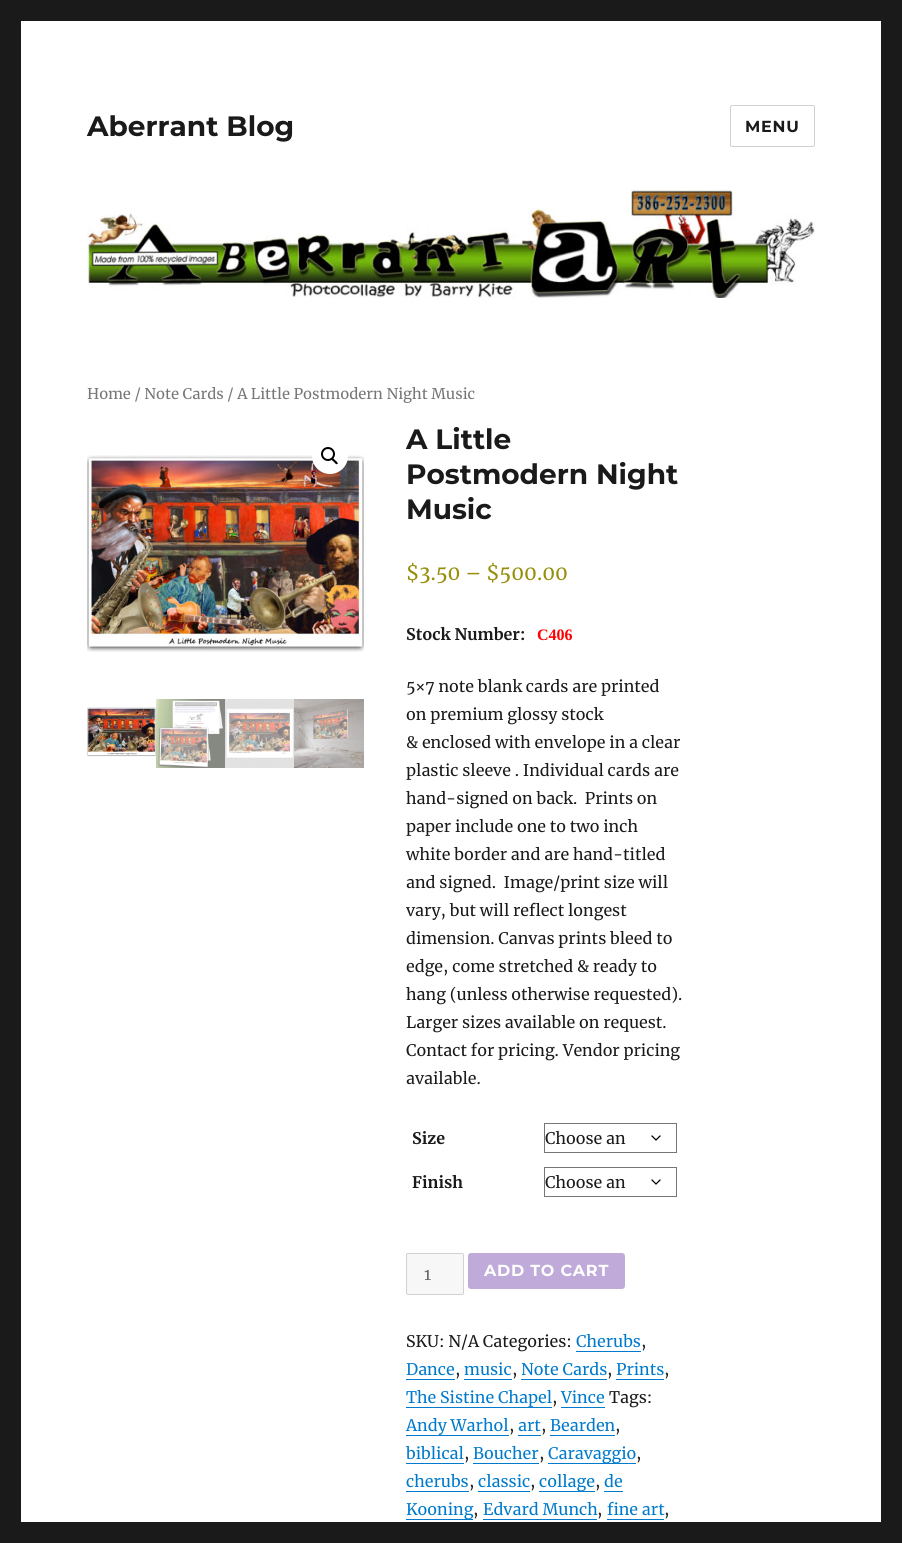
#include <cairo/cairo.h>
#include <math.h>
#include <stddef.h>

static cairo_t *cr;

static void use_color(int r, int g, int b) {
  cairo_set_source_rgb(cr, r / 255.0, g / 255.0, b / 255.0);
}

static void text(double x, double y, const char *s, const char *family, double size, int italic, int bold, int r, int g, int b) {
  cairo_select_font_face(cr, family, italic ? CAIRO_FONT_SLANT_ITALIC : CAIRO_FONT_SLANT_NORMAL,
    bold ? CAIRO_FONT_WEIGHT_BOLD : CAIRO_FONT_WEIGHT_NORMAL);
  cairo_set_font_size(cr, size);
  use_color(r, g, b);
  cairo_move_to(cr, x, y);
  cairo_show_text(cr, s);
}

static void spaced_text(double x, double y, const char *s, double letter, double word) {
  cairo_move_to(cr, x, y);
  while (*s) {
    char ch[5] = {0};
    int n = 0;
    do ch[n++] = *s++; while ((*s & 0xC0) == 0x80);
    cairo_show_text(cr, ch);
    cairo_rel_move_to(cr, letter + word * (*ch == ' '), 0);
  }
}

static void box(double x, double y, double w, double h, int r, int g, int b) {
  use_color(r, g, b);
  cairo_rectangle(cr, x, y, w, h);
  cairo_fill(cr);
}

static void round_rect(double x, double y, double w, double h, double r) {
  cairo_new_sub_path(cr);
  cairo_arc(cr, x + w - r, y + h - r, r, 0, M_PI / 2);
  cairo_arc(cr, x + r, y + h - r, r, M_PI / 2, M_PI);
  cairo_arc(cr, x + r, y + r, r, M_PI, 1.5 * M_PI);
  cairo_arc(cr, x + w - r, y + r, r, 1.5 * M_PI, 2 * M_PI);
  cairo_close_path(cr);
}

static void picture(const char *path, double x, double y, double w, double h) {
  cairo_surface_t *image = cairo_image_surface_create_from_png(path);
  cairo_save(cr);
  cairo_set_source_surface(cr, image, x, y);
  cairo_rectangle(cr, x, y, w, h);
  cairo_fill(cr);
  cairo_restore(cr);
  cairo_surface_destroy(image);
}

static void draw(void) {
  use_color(26, 26, 26);
  cairo_paint(cr);
  box(21, 21, 860, 1501, 255, 255, 255);
  round_rect(730.5, 105.5, 84, 41, 1.5);
  use_color(209, 209, 209);
  cairo_set_line_width(cr, 1);
  cairo_stroke(cr);
  picture("img_01.png", 87, 189, 728, 109);
  picture("img_02.png", 87, 455, 277, 197);
  use_color(255, 255, 255);
  cairo_arc(cr, 330, 456, 18, 0, 2 * M_PI);
  cairo_fill(cr);
  cairo_arc(cr, 328, 454, 6, 0, 2 * M_PI);
  use_color(0, 0, 0);
  cairo_set_line_width(cr, 2);
  cairo_stroke(cr);
  cairo_new_path(cr);
  cairo_move_to(cr, 331.5, 458.5);
  cairo_curve_to(cr, 333, 457, 334.5, 460, 335.5, 460.5);
  cairo_curve_to(cr, 336, 461, 338.5, 463, 337.5, 464);
  cairo_curve_to(cr, 336, 465, 334.5, 462.5, 334, 462);
  cairo_curve_to(cr, 333.5, 461.5, 330.5, 459.5, 331.5, 458.5);
  cairo_close_path(cr);
  cairo_fill(cr);
  picture("img_03.png", 87, 707, 69, 50);
  picture("img_04.png", 156, 699, 69, 69);
  picture("img_05.png", 225, 699, 69, 69);
  picture("img_06.png", 294, 699, 70, 69);
  cairo_new_path(cr);
  cairo_move_to(cr, 652, 1136);
  cairo_line_to(cr, 656, 1140);
  cairo_line_to(cr, 660, 1136);
  cairo_set_line_width(cr, 1.3);
  cairo_set_line_cap(cr, CAIRO_LINE_CAP_ROUND);
  cairo_set_line_join(cr, CAIRO_LINE_JOIN_ROUND);
  cairo_stroke(cr);
  cairo_rectangle(cr, 544.5, 1123.5, 132, 29);
  use_color(118, 118, 118);
  cairo_set_line_width(cr, 1);
  cairo_set_line_cap(cr, CAIRO_LINE_CAP_BUTT);
  cairo_set_line_join(cr, CAIRO_LINE_JOIN_MITER);
  cairo_stroke(cr);
  cairo_new_path(cr);
  cairo_move_to(cr, 652, 1180);
  cairo_line_to(cr, 656, 1184);
  cairo_line_to(cr, 660, 1180);
  use_color(0, 0, 0);
  cairo_set_line_width(cr, 1.3);
  cairo_set_line_cap(cr, CAIRO_LINE_CAP_ROUND);
  cairo_set_line_join(cr, CAIRO_LINE_JOIN_ROUND);
  cairo_stroke(cr);
  cairo_rectangle(cr, 544.5, 1167.5, 132, 29);
  use_color(118, 118, 118);
  cairo_set_line_width(cr, 1);
  cairo_set_line_cap(cr, CAIRO_LINE_CAP_BUTT);
  cairo_set_line_join(cr, CAIRO_LINE_JOIN_MITER);
  cairo_stroke(cr);
  use_color(247, 247, 247);
  round_rect(406.5, 1253.5, 57, 41, 1.5);
  cairo_fill_preserve(cr);
  use_color(209, 209, 209);
  cairo_stroke(cr);
  use_color(191, 170, 217);
  round_rect(468, 1253, 157, 36, 3);
  cairo_fill(cr);
  box(576, 1351, 65, 1, 0, 122, 204);
  box(406, 1379, 49, 1, 0, 122, 204);
  box(464, 1379, 48, 1, 0, 122, 204);
  box(521, 1379, 86, 1, 0, 122, 204);
  box(616, 1379, 48, 1, 0, 122, 204);
  box(406, 1407, 146, 1, 0, 122, 204);
  box(561, 1407, 44, 1, 0, 122, 204);
  box(406, 1435, 103, 1, 0, 122, 204);
  box(518, 1435, 23, 1, 0, 122, 204);
  box(550, 1435, 65, 1, 0, 122, 204);
  box(406, 1463, 58, 1, 0, 122, 204);
  box(473, 1463, 66, 1, 0, 122, 204);
  box(548, 1463, 88, 1, 0, 122, 204);
  box(406, 1491, 63, 1, 0, 122, 204);
  box(478, 1491, 52, 1, 0, 122, 204);
  box(539, 1491, 56, 1, 0, 122, 204);
  box(604, 1491, 19, 1, 0, 122, 204);
  box(406, 1519, 67, 1, 0, 122, 204);
  box(483, 1519, 114, 1, 0, 122, 204);
  box(607, 1519, 57, 1, 0, 122, 204);
  text(87, 136, "Aberrant Blog", "Montserrat Thin", 28, 0, 0, 26, 26, 26);
  cairo_set_font_size(cr, 16);
  spaced_text(745, 132, "MENU", 0.75, 0);
  text(87, 399, "Home / Note Cards / A Little Postmodern Night Music", "Merriweather", 14.75, 0, 0, 118, 118, 118);
  text(406, 449, "A Little", "Montserrat Thin", 28, 0, 0, 26, 26, 26);
  text(406, 484, "Postmodern Night", "Montserrat Thin", 28, 0, 0, 26, 26, 26);
  text(406, 519, "Music", "Montserrat Thin", 28, 0, 0, 26, 26, 26);
  text(406, 580, "$3.50 – $500.00", "Merriweather", 20, 0, 0, 149, 142, 9);
  text(406, 640, "Stock Number:", "Merriweather", 16, 0, 1, 26, 26, 26);
  text(537, 640, "C406", "Liberation Serif", 16, 0, 1, 255, 0, 0);
  text(406, 692, "5×7 note blank cards are printed", "Merriweather", 16, 0, 0, 26, 26, 26);
  text(406, 720, "on premium glossy stock", "Merriweather", 16, 0, 0, 26, 26, 26);
  text(406, 748, "& enclosed with envelope in a clear", "Merriweather", 16, 0, 0, 26, 26, 26);
  text(406, 776, "plastic sleeve . Individual cards are", "Merriweather", 16, 0, 0, 26, 26, 26);
  text(406, 804, "hand-signed on back.  Prints on", "Merriweather", 16, 0, 0, 26, 26, 26);
  text(406, 832, "paper include one to two inch", "Merriweather", 16, 0, 0, 26, 26, 26);
  text(406, 860, "white border and are hand-titled", "Merriweather", 16, 0, 0, 26, 26, 26);
  text(406, 888, "and signed.  Image/print size will", "Merriweather", 16, 0, 0, 26, 26, 26);
  text(406, 916, "vary, but will reflect longest", "Merriweather", 16, 0, 0, 26, 26, 26);
  text(406, 944, "dimension. Canvas prints bleed to", "Merriweather", 16, 0, 0, 26, 26, 26);
  text(406, 972, "edge, come stretched & ready to", "Merriweather", 16, 0, 0, 26, 26, 26);
  text(406, 1000, "hang (unless otherwise requested).", "Merriweather", 16, 0, 0, 26, 26, 26);
  text(406, 1028, "Larger sizes available on request.", "Merriweather", 16, 0, 0, 26, 26, 26);
  text(406, 1056, "Contact for pricing. Vendor pricing", "Merriweather", 16, 0, 0, 26, 26, 26);
  text(406, 1084, "available.", "Merriweather", 16, 0, 0, 26, 26, 26);
  text(412, 1144, "Size", "Merriweather", 16, 0, 1, 26, 26, 26);
  text(545, 1144, "Choose an", "Merriweather", 16, 0, 0, 26, 26, 26);
  text(412, 1188, "Finish", "Merriweather", 16, 0, 1, 26, 26, 26);
  text(545, 1188, "Choose an", "Merriweather", 16, 0, 0, 26, 26, 26);
  text(424, 1280, "1", "Merriweather", 16, 0, 0, 104, 104, 104);
  cairo_select_font_face(cr, "Montserrat Thin", CAIRO_FONT_SLANT_NORMAL, CAIRO_FONT_WEIGHT_NORMAL);
  use_color(255, 255, 255);
  spaced_text(484, 1276, "ADD TO CART", 0.75, 0);
  text(406, 1347, "SKU: N/A Categories:", "Merriweather", 16, 0, 0, 26, 26, 26);
  text(576, 1347, "Cherubs", "Merriweather", 16, 0, 0, 0, 122, 204);
  text(641, 1347, ",", "Merriweather", 16, 0, 0, 26, 26, 26);
  text(406, 1375, "Dance", "Merriweather", 16, 0, 0, 0, 122, 204);
  text(455, 1375, ",", "Merriweather", 16, 0, 0, 26, 26, 26);
  text(464, 1375, "music", "Merriweather", 16, 0, 0, 0, 122, 204);
  text(512, 1375, ",", "Merriweather", 16, 0, 0, 26, 26, 26);
  text(521, 1375, "Note Cards", "Merriweather", 16, 0, 0, 0, 122, 204);
  text(607, 1375, ",", "Merriweather", 16, 0, 0, 26, 26, 26);
  text(616, 1375, "Prints", "Merriweather", 16, 0, 0, 0, 122, 204);
  text(664, 1375, ",", "Merriweather", 16, 0, 0, 26, 26, 26);
  text(406, 1403, "The Sistine Chapel", "Merriweather", 16, 0, 0, 0, 122, 204);
  text(552, 1403, ",", "Merriweather", 16, 0, 0, 26, 26, 26);
  text(561, 1403, "Vince", "Merriweather", 16, 0, 0, 0, 122, 204);
  text(609, 1403, "Tags:", "Merriweather", 16, 0, 0, 26, 26, 26);
  text(406, 1431, "Andy Warhol", "Merriweather", 16, 0, 0, 0, 122, 204);
  text(509, 1431, ",", "Merriweather", 16, 0, 0, 26, 26, 26);
  text(518, 1431, "art", "Merriweather", 16, 0, 0, 0, 122, 204);
  text(541, 1431, ",", "Merriweather", 16, 0, 0, 26, 26, 26);
  text(550, 1431, "Bearden", "Merriweather", 16, 0, 0, 0, 122, 204);
  text(615, 1431, ",", "Merriweather", 16, 0, 0, 26, 26, 26);
  text(406, 1459, "biblical", "Merriweather", 16, 0, 0, 0, 122, 204);
  text(464, 1459, ",", "Merriweather", 16, 0, 0, 26, 26, 26);
  text(473, 1459, "Boucher", "Merriweather", 16, 0, 0, 0, 122, 204);
  text(539, 1459, ",", "Merriweather", 16, 0, 0, 26, 26, 26);
  text(548, 1459, "Caravaggio", "Merriweather", 16, 0, 0, 0, 122, 204);
  text(636, 1459, ",", "Merriweather", 16, 0, 0, 26, 26, 26);
  text(406, 1487, "cherubs", "Merriweather", 16, 0, 0, 0, 122, 204);
  text(469, 1487, ",", "Merriweather", 16, 0, 0, 26, 26, 26);
  text(478, 1487, "classic", "Merriweather", 16, 0, 0, 0, 122, 204);
  text(530, 1487, ",", "Merriweather", 16, 0, 0, 26, 26, 26);
  text(539, 1487, "collage", "Merriweather", 16, 0, 0, 0, 122, 204);
  text(595, 1487, ",", "Merriweather", 16, 0, 0, 26, 26, 26);
  text(604, 1487, "de", "Merriweather", 16, 0, 0, 0, 122, 204);
  text(406, 1515, "Kooning", "Merriweather", 16, 0, 0, 0, 122, 204);
  text(473, 1515, ",", "Merriweather", 16, 0, 0, 26, 26, 26);
  text(483, 1515, "Edvard Munch", "Merriweather", 16, 0, 0, 0, 122, 204);
  text(597, 1515, ",", "Merriweather", 16, 0, 0, 26, 26, 26);
  text(607, 1515, "fine art", "Merriweather", 16, 0, 0, 0, 122, 204);
  text(664, 1515, ",", "Merriweather", 16, 0, 0, 26, 26, 26);
}

int main(void) {
  cairo_surface_t *surface = cairo_image_surface_create(CAIRO_FORMAT_RGB24, 902, 1543);
  cr = cairo_create(surface);
  cairo_font_options_t *options = cairo_font_options_create();
  cairo_font_options_set_hint_metrics(options, CAIRO_HINT_METRICS_OFF);
  cairo_font_options_set_hint_style(options, CAIRO_HINT_STYLE_NONE);
  cairo_set_font_options(cr, options);
  cairo_set_miter_limit(cr, 4);
  draw();
  cairo_surface_write_to_png(surface, "out.png");
  cairo_font_options_destroy(options);
  cairo_destroy(cr);
  cairo_surface_destroy(surface);
  return 0;
}
